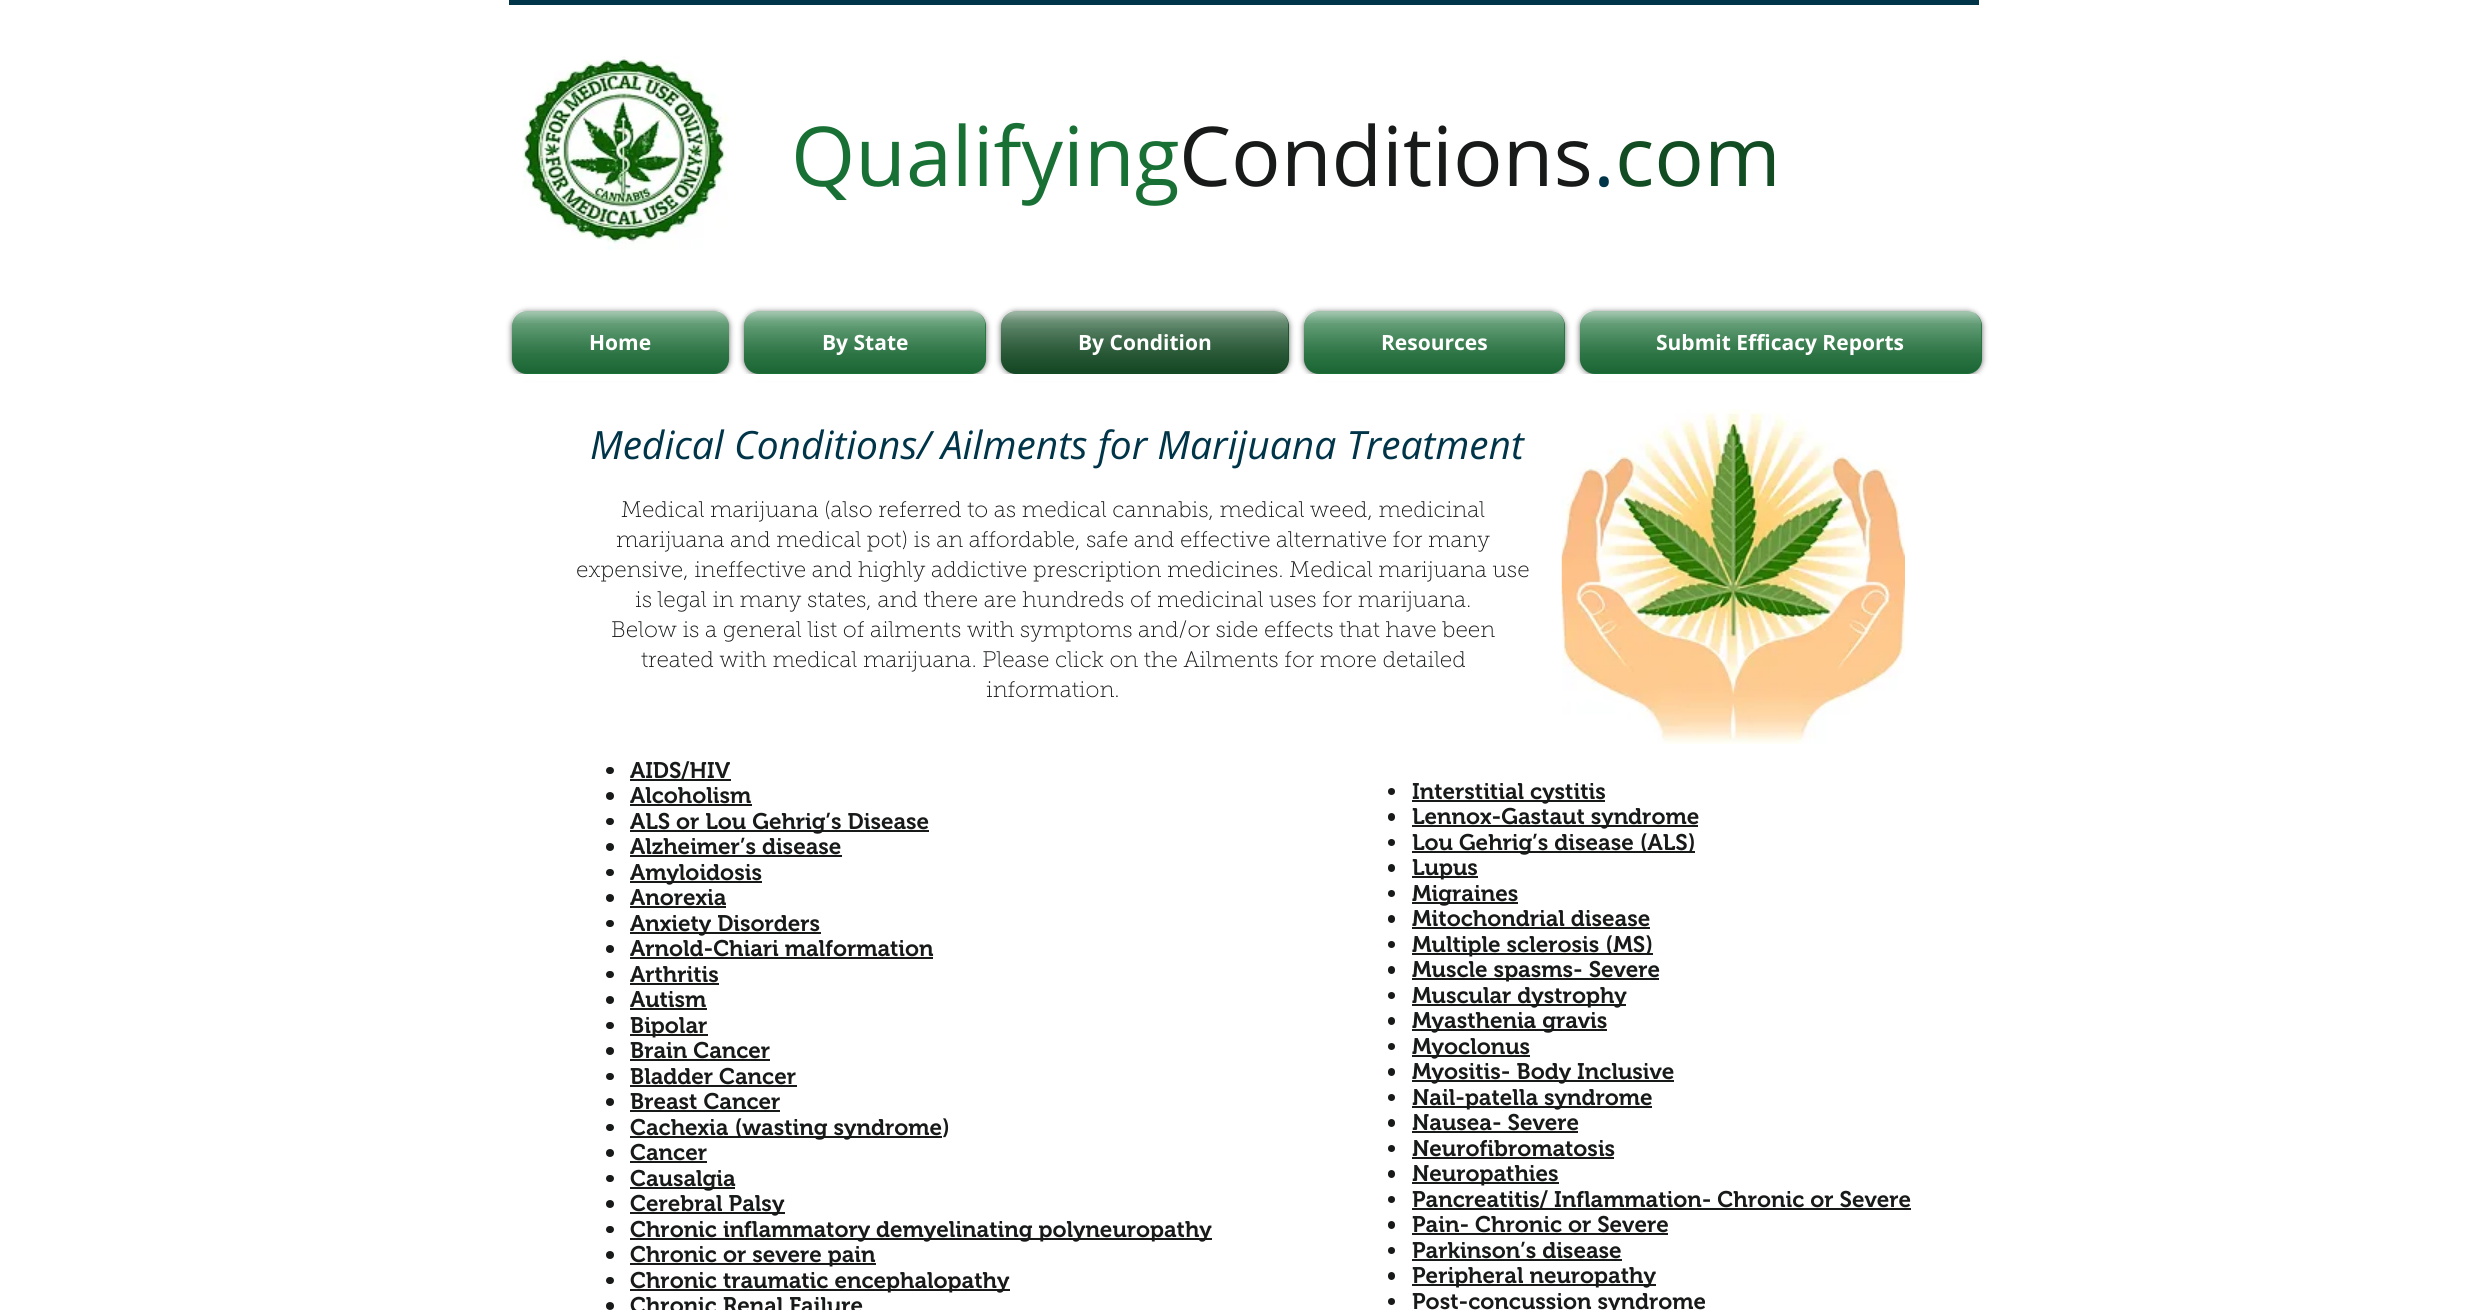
#include <cairo/cairo.h>
#include <math.h>
#include <stddef.h>

static cairo_t *cr;

static void use_color(int r, int g, int b) {
  cairo_set_source_rgb(cr, r / 255.0, g / 255.0, b / 255.0);
}

static void text(double x, double y, const char *s, const char *family, double size, int italic, int bold, int r, int g, int b) {
  cairo_select_font_face(cr, family, italic ? CAIRO_FONT_SLANT_ITALIC : CAIRO_FONT_SLANT_NORMAL,
    bold ? CAIRO_FONT_WEIGHT_BOLD : CAIRO_FONT_WEIGHT_NORMAL);
  cairo_set_font_size(cr, size);
  use_color(r, g, b);
  cairo_move_to(cr, x, y);
  cairo_show_text(cr, s);
}

static void box(double x, double y, double w, double h, int r, int g, int b) {
  use_color(r, g, b);
  cairo_rectangle(cr, x, y, w, h);
  cairo_fill(cr);
}

static void round_rect(double x, double y, double w, double h, double r) {
  cairo_new_sub_path(cr);
  cairo_arc(cr, x + w - r, y + h - r, r, 0, M_PI / 2);
  cairo_arc(cr, x + r, y + h - r, r, M_PI / 2, M_PI);
  cairo_arc(cr, x + r, y + r, r, M_PI, 1.5 * M_PI);
  cairo_arc(cr, x + w - r, y + r, r, 1.5 * M_PI, 2 * M_PI);
  cairo_close_path(cr);
}

static void shadow(double x, double y, double w, double h, double r, double blur, double alpha) {
  cairo_push_group_with_content(cr, CAIRO_CONTENT_ALPHA);
  cairo_set_operator(cr, CAIRO_OPERATOR_SOURCE);
  for (int i = 15; i >= -15 && fmin(w, h) + blur * i / 3 > 0; i -= 2) {
    double e = blur * i / 6;
    cairo_set_source_rgba(cr, 0, 0, 0, alpha * erfc((i - 1) / 8.5) / 2);
    round_rect(x - e, y - e, w + 2 * e, h + 2 * e, fmax(0, fmin(r + e + blur * .6, fmin(w, h) / 2 + e)));
    cairo_fill(cr);
  }
  cairo_pattern_t *soft = cairo_pop_group(cr);
  cairo_mask(cr, soft);
  cairo_pattern_destroy(soft);
}

static void picture(const char *path, double x, double y, double w, double h) {
  cairo_surface_t *image = cairo_image_surface_create_from_png(path);
  cairo_save(cr);
  cairo_set_source_surface(cr, image, x, y);
  cairo_rectangle(cr, x, y, w, h);
  cairo_fill(cr);
  cairo_restore(cr);
  cairo_surface_destroy(image);
}

static void draw(void) {
  use_color(255, 255, 255);
  cairo_paint(cr);
  box(509, 0, 1470, 5, 0, 52, 72);
  picture("img_01.png", 522, 56, 206, 194);
  use_color(0, 0, 0);
  shadow(512, 312, 217, 63, 15, 3, 0.6);
  use_color(24, 112, 53);
  round_rect(512, 311, 217, 63, 15);
  cairo_fill(cr);
  picture("img_02.png", 512, 311, 217, 62);
  picture("img_03.png", 511, 323, 218, 50);
  use_color(0, 0, 0);
  shadow(744, 312, 242, 63, 15, 3, 0.6);
  use_color(24, 112, 53);
  round_rect(744, 311, 242, 63, 15);
  cairo_fill(cr);
  picture("img_04.png", 744, 311, 242, 62);
  picture("img_05.png", 744, 326, 241, 47);
  use_color(0, 0, 0);
  shadow(1001, 312, 288, 63, 15, 3, 0.6);
  use_color(17, 76, 34);
  round_rect(1001, 311, 288, 63, 15);
  cairo_fill(cr);
  picture("img_06.png", 1001, 311, 288, 62);
  picture("img_07.png", 1000, 328, 288, 45);
  use_color(0, 0, 0);
  shadow(1304, 312, 261, 63, 15, 3, 0.6);
  use_color(24, 112, 53);
  round_rect(1304, 311, 261, 63, 15);
  cairo_fill(cr);
  picture("img_08.png", 1304, 311, 261, 62);
  picture("img_09.png", 1303, 323, 261, 50);
  use_color(0, 0, 0);
  shadow(1580, 312, 402, 63, 15, 3, 0.6);
  use_color(24, 112, 53);
  round_rect(1580, 311, 402, 63, 15);
  cairo_fill(cr);
  picture("img_10.png", 1580, 311, 402, 62);
  picture("img_11.png", 1579, 323, 402, 50);
  box(512, 374, 1467, 7, 255, 255, 255);
  picture("img_12.png", 1561, 409, 344, 335);
  use_color(24, 25, 25);
  round_rect(606, 767, 8, 7, 3.5);
  cairo_fill(cr);
  box(630, 779, 101, 2, 24, 25, 25);
  cairo_arc(cr, 610, 796, 4, 0, 2 * M_PI);
  cairo_fill(cr);
  box(630, 804, 122, 2, 24, 25, 25);
  round_rect(606, 818, 8, 7, 3.5);
  cairo_fill(cr);
  box(630, 830, 299, 2, 24, 25, 25);
  cairo_arc(cr, 610, 847, 4, 0, 2 * M_PI);
  cairo_fill(cr);
  box(630, 855, 212, 2, 24, 25, 25);
  round_rect(606, 869, 8, 7, 3.5);
  cairo_fill(cr);
  box(630, 881, 132, 2, 24, 25, 25);
  cairo_arc(cr, 610, 898, 4, 0, 2 * M_PI);
  cairo_fill(cr);
  box(630, 906, 96, 2, 24, 25, 25);
  round_rect(606, 920, 8, 7, 3.5);
  cairo_fill(cr);
  box(630, 932, 191, 2, 24, 25, 25);
  cairo_arc(cr, 610, 949, 4, 0, 2 * M_PI);
  cairo_fill(cr);
  box(630, 957, 303, 2, 24, 25, 25);
  round_rect(606, 971, 8, 7, 3.5);
  cairo_fill(cr);
  box(630, 983, 89, 2, 24, 25, 25);
  cairo_arc(cr, 610, 1000, 4, 0, 2 * M_PI);
  cairo_fill(cr);
  box(630, 1008, 77, 2, 24, 25, 25);
  round_rect(606, 1022, 8, 7, 3.5);
  cairo_fill(cr);
  box(630, 1034, 78, 2, 24, 25, 25);
  cairo_arc(cr, 610, 1051, 4, 0, 2 * M_PI);
  cairo_fill(cr);
  box(630, 1059, 140, 2, 24, 25, 25);
  round_rect(606, 1073, 8, 7, 3.5);
  cairo_fill(cr);
  box(630, 1085, 167, 2, 24, 25, 25);
  cairo_arc(cr, 610, 1102, 4, 0, 2 * M_PI);
  cairo_fill(cr);
  box(630, 1110, 150, 2, 24, 25, 25);
  round_rect(606, 1124, 8, 7, 3.5);
  cairo_fill(cr);
  box(630, 1136, 312, 2, 24, 25, 25);
  cairo_arc(cr, 610, 1153, 4, 0, 2 * M_PI);
  cairo_fill(cr);
  box(630, 1161, 77, 2, 24, 25, 25);
  round_rect(606, 1175, 8, 7, 3.5);
  cairo_fill(cr);
  box(630, 1187, 105, 2, 24, 25, 25);
  cairo_arc(cr, 610, 1204, 4, 0, 2 * M_PI);
  cairo_fill(cr);
  box(630, 1212, 155, 2, 24, 25, 25);
  round_rect(606, 1226, 8, 7, 3.5);
  cairo_fill(cr);
  box(630, 1238, 582, 2, 24, 25, 25);
  cairo_arc(cr, 610, 1255, 4, 0, 2 * M_PI);
  cairo_fill(cr);
  box(630, 1263, 246, 2, 24, 25, 25);
  round_rect(606, 1277, 8, 7, 3.5);
  cairo_fill(cr);
  box(630, 1289, 380, 2, 24, 25, 25);
  cairo_arc(cr, 610, 1306, 4, 0, 2 * M_PI);
  cairo_fill(cr);
  cairo_arc(cr, 1391.5, 791.5, 3.5, 0, 2 * M_PI);
  cairo_fill(cr);
  box(1412, 800, 193, 2, 24, 25, 25);
  round_rect(1388, 813, 7, 8, 3.5);
  cairo_fill(cr);
  box(1412, 825, 286, 2, 24, 25, 25);
  cairo_arc(cr, 1391.5, 842.5, 3.5, 0, 2 * M_PI);
  cairo_fill(cr);
  box(1412, 851, 283, 2, 24, 25, 25);
  round_rect(1388, 864, 7, 8, 3.5);
  cairo_fill(cr);
  box(1412, 876, 66, 2, 24, 25, 25);
  cairo_arc(cr, 1391.5, 893.5, 3.5, 0, 2 * M_PI);
  cairo_fill(cr);
  box(1412, 902, 106, 2, 24, 25, 25);
  round_rect(1388, 915, 7, 8, 3.5);
  cairo_fill(cr);
  box(1412, 927, 238, 2, 24, 25, 25);
  cairo_arc(cr, 1391.5, 944.5, 3.5, 0, 2 * M_PI);
  cairo_fill(cr);
  box(1412, 953, 241, 2, 24, 25, 25);
  round_rect(1388, 966, 7, 8, 3.5);
  cairo_fill(cr);
  box(1412, 978, 247, 2, 24, 25, 25);
  cairo_arc(cr, 1391.5, 995.5, 3.5, 0, 2 * M_PI);
  cairo_fill(cr);
  box(1412, 1004, 214, 2, 24, 25, 25);
  round_rect(1388, 1017, 7, 8, 3.5);
  cairo_fill(cr);
  box(1412, 1029, 195, 2, 24, 25, 25);
  cairo_arc(cr, 1391.5, 1046.5, 3.5, 0, 2 * M_PI);
  cairo_fill(cr);
  box(1412, 1055, 118, 2, 24, 25, 25);
  round_rect(1388, 1068, 7, 8, 3.5);
  cairo_fill(cr);
  box(1412, 1080, 262, 2, 24, 25, 25);
  cairo_arc(cr, 1391.5, 1097.5, 3.5, 0, 2 * M_PI);
  cairo_fill(cr);
  box(1412, 1106, 240, 2, 24, 25, 25);
  round_rect(1388, 1119, 7, 8, 3.5);
  cairo_fill(cr);
  box(1412, 1131, 166, 2, 24, 25, 25);
  cairo_arc(cr, 1391.5, 1148.5, 3.5, 0, 2 * M_PI);
  cairo_fill(cr);
  box(1412, 1157, 202, 2, 24, 25, 25);
  round_rect(1388, 1170, 7, 8, 3.5);
  cairo_fill(cr);
  box(1412, 1182, 147, 2, 24, 25, 25);
  cairo_arc(cr, 1391.5, 1199.5, 3.5, 0, 2 * M_PI);
  cairo_fill(cr);
  box(1412, 1208, 499, 2, 24, 25, 25);
  round_rect(1388, 1221, 7, 8, 3.5);
  cairo_fill(cr);
  box(1412, 1233, 256, 2, 24, 25, 25);
  cairo_arc(cr, 1391.5, 1250.5, 3.5, 0, 2 * M_PI);
  cairo_fill(cr);
  box(1412, 1259, 210, 2, 24, 25, 25);
  round_rect(1388, 1272, 7, 8, 3.5);
  cairo_fill(cr);
  box(1412, 1284, 244, 2, 24, 25, 25);
  cairo_arc(cr, 1391.5, 1301.5, 3.5, 0, 2 * M_PI);
  cairo_fill(cr);
  text(791, 186, "Qualifying", "Open Sans", 82.5, 0, 0, 24, 112, 53);
  text(1179, 186, "Conditions", "Open Sans", 82.5, 0, 0, 24, 25, 25);
  text(1593, 186, ".", "Open Sans", 82.5, 0, 0, 0, 52, 72);
  text(1615, 186, "com", "Open Sans", 82.5, 0, 0, 17, 76, 34);
  text(589, 350, "Home", "Open Sans", 21, 0, 1, 255, 255, 255);
  text(822, 350, "By State", "Open Sans", 21, 0, 1, 255, 255, 255);
  text(1078, 350, "By Condition", "Open Sans", 21, 0, 1, 255, 255, 255);
  text(1381, 350, "Resources", "Open Sans", 21, 0, 1, 255, 255, 255);
  text(1656, 350, "Submit Efficacy Reports", "Open Sans", 21, 0, 1, 255, 255, 255);
  text(590, 459, "Medical Conditions/ Ailments for Marijuana Treatment", "Open Sans", 39, 1, 0, 0, 52, 72);
  text(621, 517, "Medical marijuana (also referred to as medical cannabis, medical weed, medicinal", "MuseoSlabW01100 Thin", 22.5, 0, 0, 24, 25, 25);
  text(616, 547, "marijuana and medical pot) is an affordable, safe and effective alternative for many", "MuseoSlabW01100 Thin", 22.5, 0, 0, 24, 25, 25);
  text(576, 577, "expensive, ineffective and highly addictive prescription medicines. Medical marijuana use", "MuseoSlabW01100 Thin", 22.5, 0, 0, 24, 25, 25);
  text(635, 607, "is legal in many states, and there are hundreds of medicinal uses for marijuana.", "MuseoSlabW01100 Thin", 22.5, 0, 0, 24, 25, 25);
  text(611, 637, "Below is a general list of ailments with symptoms and/or side effects that have been", "MuseoSlabW01100 Thin", 22.5, 0, 0, 24, 25, 25);
  text(641, 667, "treated with medical marijuana. Please click on the Ailments for more detailed", "MuseoSlabW01100 Thin", 22.5, 0, 0, 24, 25, 25);
  text(986, 697, "information.", "MuseoSlabW01100 Thin", 22.5, 0, 0, 24, 25, 25);
  text(630, 778, "AIDS/HIV", "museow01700 SemiBold", 22.5, 0, 0, 24, 25, 25);
  text(630, 803, "Alcoholism", "museow01700 SemiBold", 22.5, 0, 0, 24, 25, 25);
  text(630, 829, "ALS or Lou Gehrig’s Disease", "museow01700 SemiBold", 22.5, 0, 0, 24, 25, 25);
  text(630, 854, "Alzheimer’s disease", "museow01700 SemiBold", 22.5, 0, 0, 24, 25, 25);
  text(630, 880, "Amyloidosis", "museow01700 SemiBold", 22.5, 0, 0, 24, 25, 25);
  text(630, 905, "Anorexia", "museow01700 SemiBold", 22.5, 0, 0, 24, 25, 25);
  text(630, 931, "Anxiety Disorders", "museow01700 SemiBold", 22.5, 0, 0, 24, 25, 25);
  text(630, 956, "Arnold-Chiari malformation", "museow01700 SemiBold", 22.5, 0, 0, 24, 25, 25);
  text(630, 982, "Arthritis", "museow01700 SemiBold", 22.5, 0, 0, 24, 25, 25);
  text(630, 1007, "Autism", "museow01700 SemiBold", 22.5, 0, 0, 24, 25, 25);
  text(630, 1033, "Bipolar", "museow01700 SemiBold", 22.5, 0, 0, 24, 25, 25);
  text(630, 1058, "Brain Cancer", "museow01700 SemiBold", 22.5, 0, 0, 24, 25, 25);
  text(630, 1084, "Bladder Cancer", "museow01700 SemiBold", 22.5, 0, 0, 24, 25, 25);
  text(630, 1109, "Breast Cancer", "museow01700 SemiBold", 22.5, 0, 0, 24, 25, 25);
  text(630, 1135, "Cachexia (wasting syndrome)", "museow01700 SemiBold", 22.5, 0, 0, 24, 25, 25);
  text(630, 1160, "Cancer", "museow01700 SemiBold", 22.5, 0, 0, 24, 25, 25);
  text(630, 1186, "Causalgia", "museow01700 SemiBold", 22.5, 0, 0, 24, 25, 25);
  text(630, 1211, "Cerebral Palsy", "museow01700 SemiBold", 22.5, 0, 0, 24, 25, 25);
  text(630, 1237, "Chronic inflammatory demyelinating polyneuropathy", "museow01700 SemiBold", 22.5, 0, 0, 24, 25, 25);
  text(630, 1262, "Chronic or severe pain", "museow01700 SemiBold", 22.5, 0, 0, 24, 25, 25);
  text(630, 1288, "Chronic traumatic encephalopathy", "museow01700 SemiBold", 22.5, 0, 0, 24, 25, 25);
  text(630, 1313, "Chronic Renal Failure", "museow01700 SemiBold", 22.5, 0, 0, 24, 25, 25);
  text(1412, 799, "Interstitial cystitis", "museow01700 SemiBold", 22.5, 0, 0, 24, 25, 25);
  text(1412, 824, "Lennox-Gastaut syndrome", "museow01700 SemiBold", 22.5, 0, 0, 24, 25, 25);
  text(1412, 850, "Lou Gehrig’s disease (ALS)", "museow01700 SemiBold", 22.5, 0, 0, 24, 25, 25);
  text(1412, 875, "Lupus", "museow01700 SemiBold", 22.5, 0, 0, 24, 25, 25);
  text(1412, 901, "Migraines", "museow01700 SemiBold", 22.5, 0, 0, 24, 25, 25);
  text(1412, 926, "Mitochondrial disease", "museow01700 SemiBold", 22.5, 0, 0, 24, 25, 25);
  text(1412, 952, "Multiple sclerosis (MS)", "museow01700 SemiBold", 22.5, 0, 0, 24, 25, 25);
  text(1412, 977, "Muscle spasms- Severe", "museow01700 SemiBold", 22.5, 0, 0, 24, 25, 25);
  text(1412, 1003, "Muscular dystrophy", "museow01700 SemiBold", 22.5, 0, 0, 24, 25, 25);
  text(1412, 1028, "Myasthenia gravis", "museow01700 SemiBold", 22.5, 0, 0, 24, 25, 25);
  text(1412, 1054, "Myoclonus", "museow01700 SemiBold", 22.5, 0, 0, 24, 25, 25);
  text(1412, 1079, "Myositis- Body Inclusive", "museow01700 SemiBold", 22.5, 0, 0, 24, 25, 25);
  text(1412, 1105, "Nail-patella syndrome", "museow01700 SemiBold", 22.5, 0, 0, 24, 25, 25);
  text(1412, 1130, "Nausea- Severe", "museow01700 SemiBold", 22.5, 0, 0, 24, 25, 25);
  text(1412, 1156, "Neurofibromatosis", "museow01700 SemiBold", 22.5, 0, 0, 24, 25, 25);
  text(1412, 1181, "Neuropathies", "museow01700 SemiBold", 22.5, 0, 0, 24, 25, 25);
  text(1412, 1207, "Pancreatitis/ Inflammation- Chronic or Severe", "museow01700 SemiBold", 22.5, 0, 0, 24, 25, 25);
  text(1412, 1232, "Pain- Chronic or Severe", "museow01700 SemiBold", 22.5, 0, 0, 24, 25, 25);
  text(1412, 1258, "Parkinson’s disease", "museow01700 SemiBold", 22.5, 0, 0, 24, 25, 25);
  text(1412, 1283, "Peripheral neuropathy", "museow01700 SemiBold", 22.5, 0, 0, 24, 25, 25);
  text(1412, 1309, "Post-concussion syndrome", "museow01700 SemiBold", 22.5, 0, 0, 24, 25, 25);
}

int main(void) {
  cairo_surface_t *surface = cairo_image_surface_create(CAIRO_FORMAT_RGB24, 2486, 1310);
  cr = cairo_create(surface);
  cairo_font_options_t *options = cairo_font_options_create();
  cairo_font_options_set_hint_metrics(options, CAIRO_HINT_METRICS_OFF);
  cairo_font_options_set_hint_style(options, CAIRO_HINT_STYLE_NONE);
  cairo_set_font_options(cr, options);
  cairo_set_miter_limit(cr, 4);
  draw();
  cairo_surface_write_to_png(surface, "out.png");
  cairo_font_options_destroy(options);
  cairo_destroy(cr);
  cairo_surface_destroy(surface);
  return 0;
}
